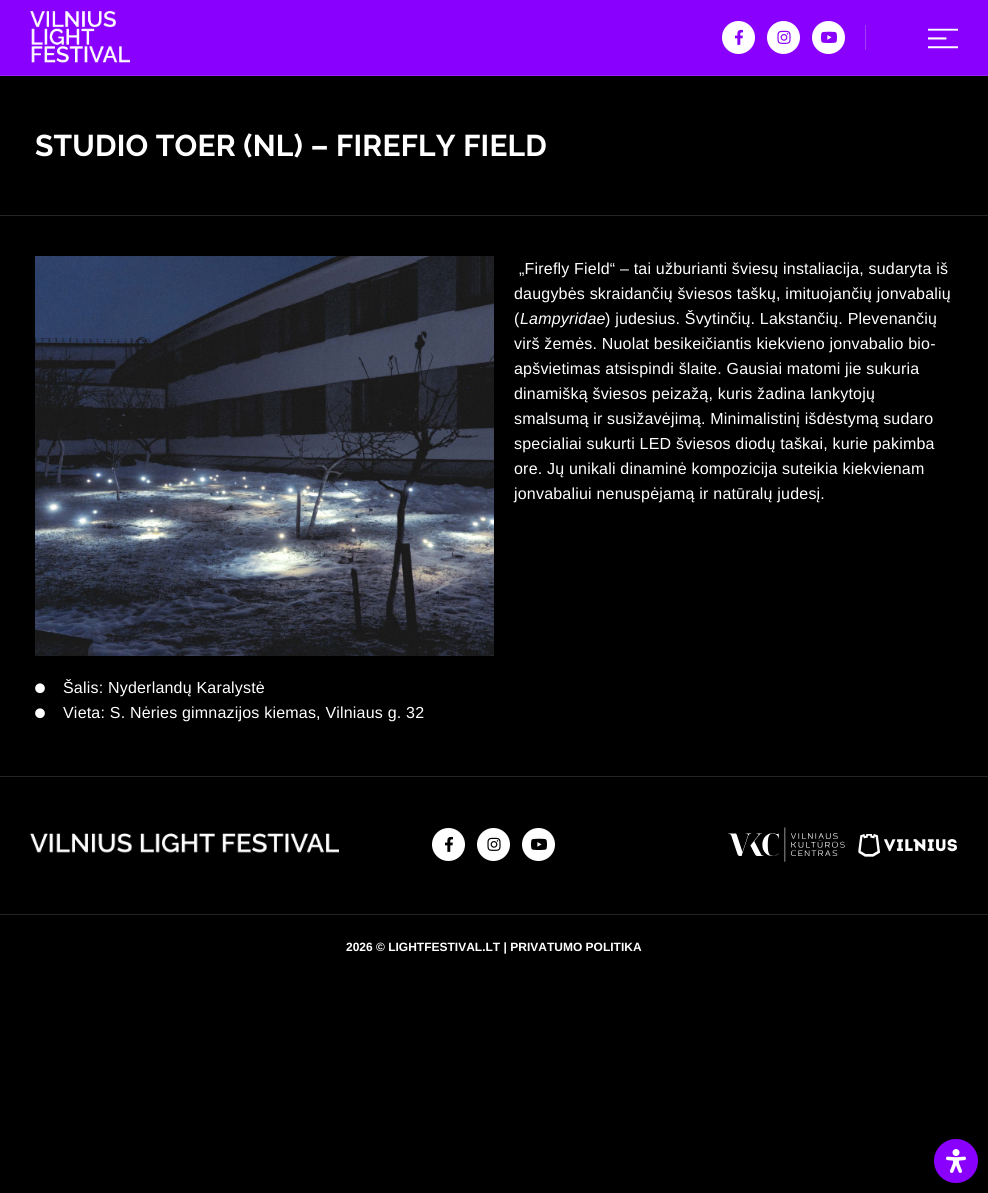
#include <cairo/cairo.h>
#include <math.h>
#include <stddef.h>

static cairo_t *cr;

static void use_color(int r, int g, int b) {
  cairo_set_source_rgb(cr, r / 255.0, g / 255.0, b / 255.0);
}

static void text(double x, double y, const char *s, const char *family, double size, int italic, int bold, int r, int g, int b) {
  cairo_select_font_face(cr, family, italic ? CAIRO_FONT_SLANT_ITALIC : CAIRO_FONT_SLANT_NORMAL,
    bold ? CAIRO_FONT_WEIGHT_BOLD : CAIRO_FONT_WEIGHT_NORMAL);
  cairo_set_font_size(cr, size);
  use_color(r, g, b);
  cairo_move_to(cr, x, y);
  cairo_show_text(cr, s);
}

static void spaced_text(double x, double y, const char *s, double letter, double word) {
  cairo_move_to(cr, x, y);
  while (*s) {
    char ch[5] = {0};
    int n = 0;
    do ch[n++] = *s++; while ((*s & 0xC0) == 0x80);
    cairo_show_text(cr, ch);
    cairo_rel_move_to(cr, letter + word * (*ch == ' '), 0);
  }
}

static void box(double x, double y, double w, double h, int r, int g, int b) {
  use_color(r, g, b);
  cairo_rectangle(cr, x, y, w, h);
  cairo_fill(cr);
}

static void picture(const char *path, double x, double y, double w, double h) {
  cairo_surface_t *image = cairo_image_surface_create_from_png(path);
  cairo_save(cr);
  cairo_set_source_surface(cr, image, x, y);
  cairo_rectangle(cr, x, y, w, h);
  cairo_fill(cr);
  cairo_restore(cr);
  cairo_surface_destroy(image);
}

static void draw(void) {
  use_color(0, 0, 0);
  cairo_paint(cr);
  box(0, 0, 988, 75, 138, 0, 255);
  box(0, 75, 988, 1, 148, 35, 244);
  picture("img_01.png", 30, 11, 100, 52);
  use_color(255, 255, 255);
  cairo_arc(cr, 738.5, 37.5, 16.5, 0, 2 * M_PI);
  cairo_fill(cr);
  picture("img_02.png", 735, 29, 8, 16);
  cairo_arc(cr, 783.5, 37.5, 16.5, 0, 2 * M_PI);
  cairo_fill(cr);
  picture("img_03.png", 777, 30, 14, 14);
  cairo_arc(cr, 828.5, 37.5, 16.5, 0, 2 * M_PI);
  cairo_fill(cr);
  picture("img_04.png", 821, 31, 16, 12);
  box(865, 25, 1, 25, 161, 59, 248);
  picture("img_05.png", 928, 28, 30, 21);
  box(0, 215, 988, 1, 36, 36, 36);
  picture("img_06.png", 35, 256, 459, 400);
  picture("img_07.png", 35, 683, 10, 11);
  picture("img_07.png", 35, 708, 10, 11);
  box(0, 776, 988, 1, 36, 36, 36);
  picture("img_08.png", 30, 833, 309, 20);
  use_color(255, 255, 255);
  cairo_arc(cr, 448.5, 844.5, 16.5, 0, 2 * M_PI);
  cairo_fill(cr);
  picture("img_09.png", 445, 836, 8, 16);
  cairo_arc(cr, 493.5, 844.5, 16.5, 0, 2 * M_PI);
  cairo_fill(cr);
  picture("img_10.png", 487, 837, 14, 14);
  cairo_arc(cr, 538.5, 844.5, 16.5, 0, 2 * M_PI);
  cairo_fill(cr);
  picture("img_11.png", 531, 838, 16, 12);
  picture("img_12.png", 728, 827, 117, 35);
  picture("img_13.png", 858, 834, 99, 23);
  box(0, 914, 988, 1, 36, 36, 36);
  use_color(138, 0, 255);
  cairo_arc(cr, 956, 1161, 22, 0, 2 * M_PI);
  cairo_fill(cr);
  picture("img_14.png", 946, 1149, 20, 24);
  cairo_select_font_face(cr, "Raleway", CAIRO_FONT_SLANT_NORMAL, CAIRO_FONT_WEIGHT_BOLD);
  cairo_set_font_size(cr, 30);
  use_color(255, 255, 255);
  spaced_text(35, 156, "STUDIO TOER (NL) – FIREFLY FIELD", 0.2, 0);
  cairo_select_font_face(cr, "Liberation Sans", CAIRO_FONT_SLANT_NORMAL, CAIRO_FONT_WEIGHT_NORMAL);
  cairo_set_font_size(cr, 16);
  spaced_text(519, 274, "„Firefly Field“ – tai užburianti šviesų instaliacija, sudaryta iš", 0.2, 0);
  spaced_text(514, 299, "daugybės skraidančių šviesos taškų, imituojančių jonvabalių", 0.2, 0);
  spaced_text(514, 324, "(", 0.2, 0);
  cairo_select_font_face(cr, "Liberation Sans", CAIRO_FONT_SLANT_ITALIC, CAIRO_FONT_WEIGHT_NORMAL);
  spaced_text(520, 324, "Lampyridae", 0.2, 0);
  cairo_select_font_face(cr, "Liberation Sans", CAIRO_FONT_SLANT_NORMAL, CAIRO_FONT_WEIGHT_NORMAL);
  spaced_text(605, 324, ") judesius. Švytinčių. Lakstančių. Plevenančių", 0.2, 0);
  spaced_text(514, 349, "virš žemės. Nuolat besikeičiantis kiekvieno jonvabalio bio-", 0.2, 0);
  spaced_text(514, 374, "apšvietimas atsispindi šlaite. Gausiai matomi jie sukuria", 0.2, 0);
  spaced_text(514, 399, "dinamišką šviesos peizažą, kuris žadina lankytojų", 0.2, 0);
  spaced_text(514, 424, "smalsumą ir susižavėjimą. Minimalistinį išdėstymą sudaro", 0.2, 0);
  spaced_text(514, 449, "specialiai sukurti LED šviesos diodų taškai, kurie pakimba", 0.2, 0);
  spaced_text(514, 474, "ore. Jų unikali dinaminė kompozicija suteikia kiekvienam", 0.2, 0);
  spaced_text(514, 499, "jonvabaliui nenuspėjamą ir natūralų judesį.", 0.2, 0);
  spaced_text(63, 693, "Šalis: Nyderlandų Karalystė", 0.2, 0);
  spaced_text(63, 718, "Vieta: S. Nėries gimnazijos kiemas, Vilniaus g. 32", 0.2, 0);
  text(346, 951, "2026 © LIGHTFESTIVAL.LT | PRIVATUMO POLITIKA", "Liberation Sans", 12, 0, 1, 255, 255, 255);
}

int main(void) {
  cairo_surface_t *surface = cairo_image_surface_create(CAIRO_FORMAT_RGB24, 988, 1193);
  cr = cairo_create(surface);
  cairo_font_options_t *options = cairo_font_options_create();
  cairo_font_options_set_hint_metrics(options, CAIRO_HINT_METRICS_OFF);
  cairo_font_options_set_hint_style(options, CAIRO_HINT_STYLE_NONE);
  cairo_set_font_options(cr, options);
  cairo_set_miter_limit(cr, 4);
  draw();
  cairo_surface_write_to_png(surface, "out.png");
  cairo_font_options_destroy(options);
  cairo_destroy(cr);
  cairo_surface_destroy(surface);
  return 0;
}
